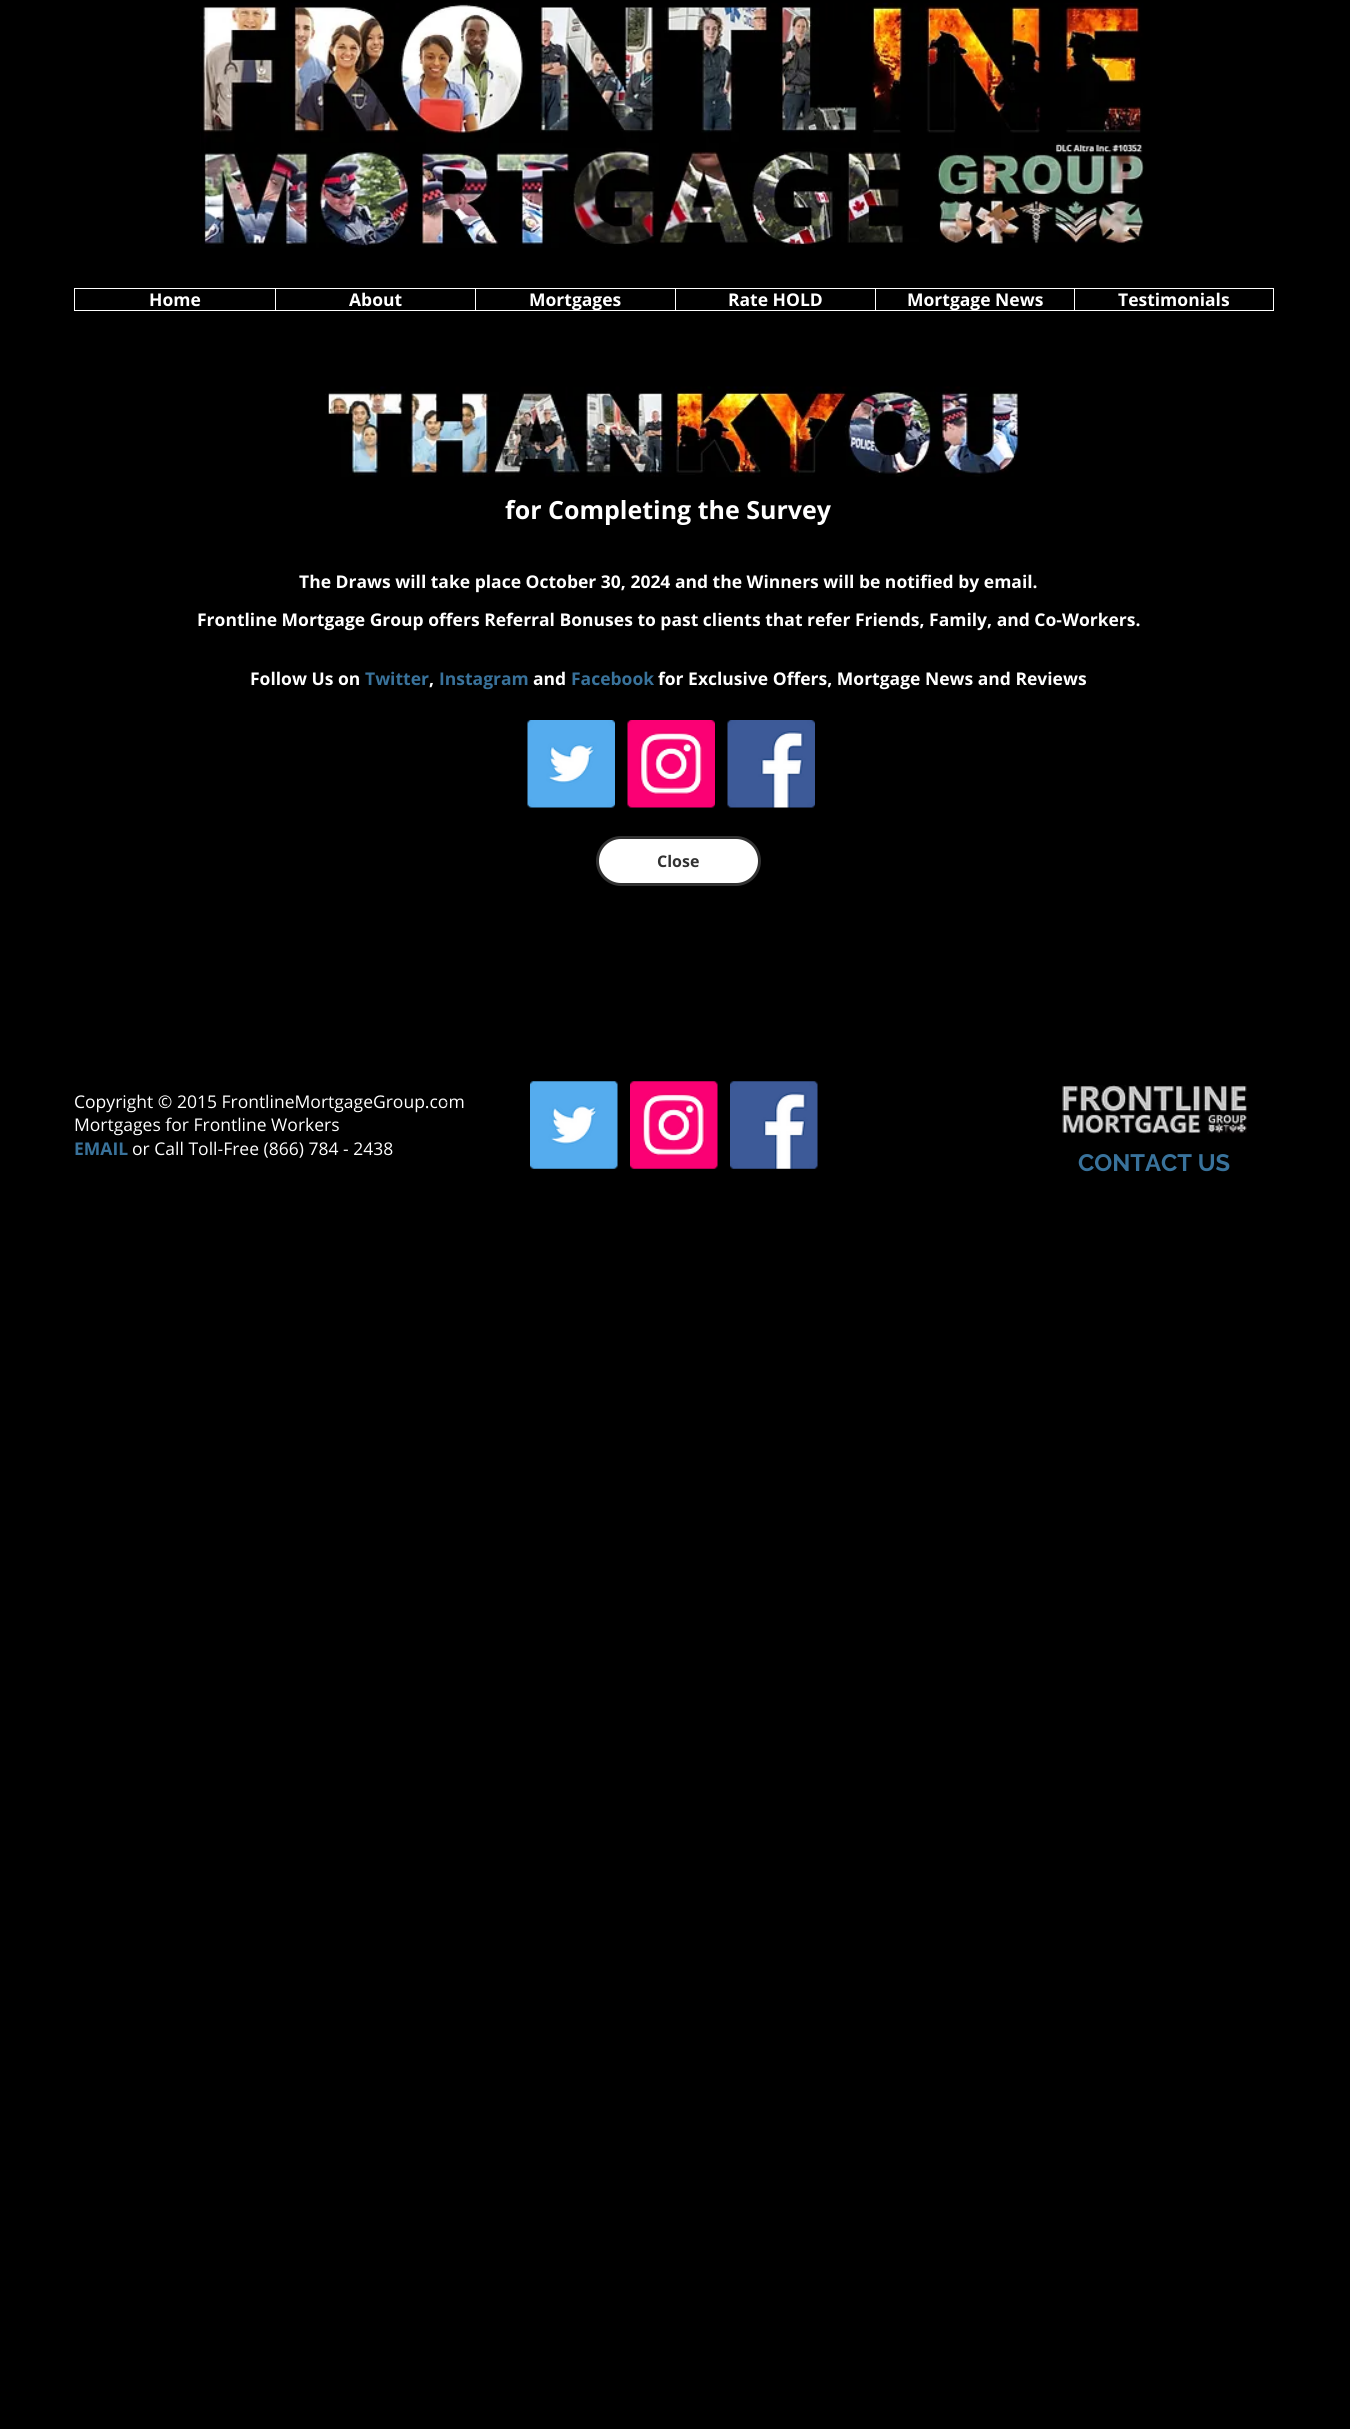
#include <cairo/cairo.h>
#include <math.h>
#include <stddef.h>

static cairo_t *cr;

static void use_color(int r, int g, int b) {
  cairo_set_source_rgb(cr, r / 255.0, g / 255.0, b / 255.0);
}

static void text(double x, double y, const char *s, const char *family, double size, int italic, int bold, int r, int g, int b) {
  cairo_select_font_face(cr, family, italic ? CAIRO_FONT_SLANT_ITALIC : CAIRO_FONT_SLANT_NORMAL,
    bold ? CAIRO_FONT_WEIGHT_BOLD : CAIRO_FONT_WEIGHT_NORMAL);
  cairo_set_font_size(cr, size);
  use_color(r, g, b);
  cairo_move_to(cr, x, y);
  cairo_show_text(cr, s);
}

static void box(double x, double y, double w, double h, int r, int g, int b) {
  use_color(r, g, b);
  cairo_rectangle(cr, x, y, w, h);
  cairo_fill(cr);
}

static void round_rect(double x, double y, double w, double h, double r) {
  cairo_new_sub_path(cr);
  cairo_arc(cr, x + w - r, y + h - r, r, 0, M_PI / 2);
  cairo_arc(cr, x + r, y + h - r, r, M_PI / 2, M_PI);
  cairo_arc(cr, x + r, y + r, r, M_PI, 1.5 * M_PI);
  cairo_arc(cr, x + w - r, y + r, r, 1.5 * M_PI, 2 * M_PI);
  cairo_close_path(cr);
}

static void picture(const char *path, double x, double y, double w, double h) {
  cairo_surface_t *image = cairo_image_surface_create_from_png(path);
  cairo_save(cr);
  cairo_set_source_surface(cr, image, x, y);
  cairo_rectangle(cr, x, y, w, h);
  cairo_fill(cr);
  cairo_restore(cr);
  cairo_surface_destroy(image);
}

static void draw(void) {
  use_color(0, 0, 0);
  cairo_paint(cr);
  picture("img_01.png", 200, 2, 944, 246);
  picture("img_02.png", 1054, 143, 89, 11);
  cairo_rectangle(cr, 74.5, 288.5, 1199, 22);
  use_color(255, 255, 255);
  cairo_set_line_width(cr, 1);
  cairo_stroke(cr);
  box(275, 289, 1, 21, 255, 255, 255);
  box(475, 289, 1, 21, 255, 255, 255);
  box(675, 289, 1, 21, 255, 255, 255);
  box(875, 289, 1, 21, 255, 255, 255);
  box(1074, 289, 1, 21, 255, 255, 255);
  picture("img_03.png", 325, 386, 695, 91);
  picture("img_04.png", 527, 720, 88, 88);
  picture("img_05.png", 627, 720, 88, 88);
  picture("img_06.png", 727, 720, 88, 88);
  round_rect(597.5, 837.5, 162, 47, 23.5);
  cairo_fill_preserve(cr);
  use_color(50, 50, 50);
  cairo_set_line_width(cr, 3);
  cairo_stroke(cr);
  picture("img_07.png", 530, 1081, 88, 88);
  picture("img_08.png", 630, 1081, 88, 88);
  picture("img_09.png", 730, 1081, 88, 88);
  picture("img_10.png", 1062, 1085, 185, 49);
  text(149, 306, "Home", "Open Sans", 17.5, 0, 1, 255, 255, 255);
  text(349, 306, "About", "Open Sans", 17.5, 0, 1, 255, 255, 255);
  text(529, 306, "Mortgages", "Open Sans", 17.5, 0, 1, 255, 255, 255);
  text(728, 306, "Rate HOLD", "Open Sans", 17.5, 0, 1, 255, 255, 255);
  text(907, 306, "Mortgage News", "Open Sans", 17.5, 0, 1, 255, 255, 255);
  text(1118, 306, "Testimonials", "Open Sans", 17.5, 0, 1, 255, 255, 255);
  text(505, 519, "for Completing the Survey", "Open Sans", 25, 0, 1, 255, 255, 255);
  text(299, 588, "The Draws will take place October 30, 2024 and the Winners will be notified by email.", "Open Sans", 17.5, 0, 1, 255, 255, 255);
  text(197, 626, "Frontline Mortgage Group offers Referral Bonuses to past clients that refer Friends, Family, and Co-Workers.", "Open Sans", 17.5, 0, 1, 255, 255, 255);
  text(250, 685, "Follow Us on", "Open Sans", 17.5, 0, 1, 255, 255, 255);
  text(365, 685, "Twitter", "Open Sans", 17.5, 0, 1, 57, 114, 155);
  text(429, 685, ",", "Open Sans", 17.5, 0, 1, 255, 255, 255);
  text(439, 685, "Instagram", "Open Sans", 17.5, 0, 1, 57, 114, 155);
  text(533, 685, "and", "Open Sans", 17.5, 0, 1, 255, 255, 255);
  text(571, 685, "Facebook", "Open Sans", 17.5, 0, 1, 57, 114, 155);
  text(658, 685, "for Exclusive Offers, Mortgage News and Reviews", "Open Sans", 17.5, 0, 1, 255, 255, 255);
  text(657, 867, "Close", "Open Sans", 16, 0, 1, 50, 50, 50);
  text(74, 1108, "Copyright © 2015 FrontlineMortgageGroup.com", "Open Sans", 17.5, 0, 0, 255, 255, 255);
  text(74, 1131, "Mortgages for Frontline Workers", "Open Sans", 17.5, 0, 0, 255, 255, 255);
  text(74, 1155, "EMAIL", "Open Sans", 17.5, 0, 1, 57, 114, 155);
  text(132, 1155, "or Call Toll-Free (866) 784 - 2438", "Open Sans", 17.5, 0, 0, 255, 255, 255);
  text(445, 1106, "r", "Raleway", 8, 0, 0, 0, 0, 0);
  text(1078, 1171, "CONTACT US", "Raleway", 23.75, 0, 1, 57, 114, 155);
}

int main(void) {
  cairo_surface_t *surface = cairo_image_surface_create(CAIRO_FORMAT_RGB24, 1350, 2429);
  cr = cairo_create(surface);
  cairo_font_options_t *options = cairo_font_options_create();
  cairo_font_options_set_hint_metrics(options, CAIRO_HINT_METRICS_OFF);
  cairo_font_options_set_hint_style(options, CAIRO_HINT_STYLE_NONE);
  cairo_set_font_options(cr, options);
  cairo_set_miter_limit(cr, 4);
  draw();
  cairo_surface_write_to_png(surface, "out.png");
  cairo_font_options_destroy(options);
  cairo_destroy(cr);
  cairo_surface_destroy(surface);
  return 0;
}
